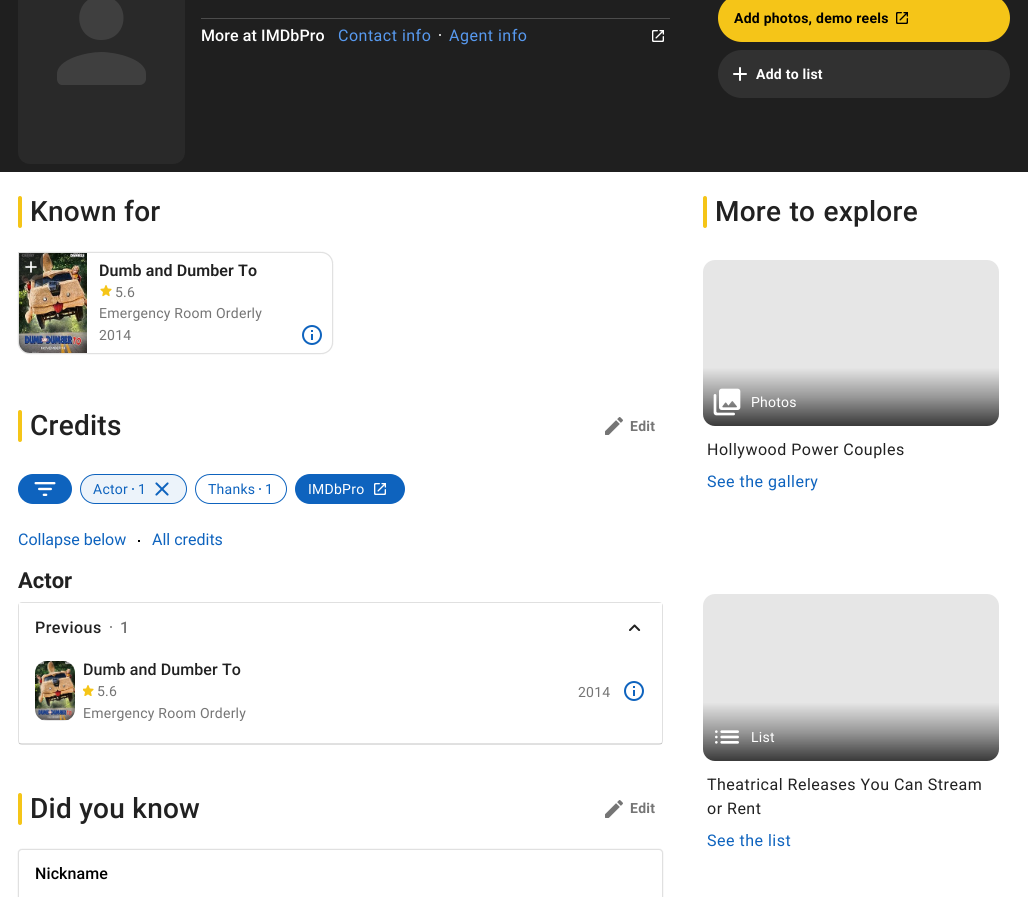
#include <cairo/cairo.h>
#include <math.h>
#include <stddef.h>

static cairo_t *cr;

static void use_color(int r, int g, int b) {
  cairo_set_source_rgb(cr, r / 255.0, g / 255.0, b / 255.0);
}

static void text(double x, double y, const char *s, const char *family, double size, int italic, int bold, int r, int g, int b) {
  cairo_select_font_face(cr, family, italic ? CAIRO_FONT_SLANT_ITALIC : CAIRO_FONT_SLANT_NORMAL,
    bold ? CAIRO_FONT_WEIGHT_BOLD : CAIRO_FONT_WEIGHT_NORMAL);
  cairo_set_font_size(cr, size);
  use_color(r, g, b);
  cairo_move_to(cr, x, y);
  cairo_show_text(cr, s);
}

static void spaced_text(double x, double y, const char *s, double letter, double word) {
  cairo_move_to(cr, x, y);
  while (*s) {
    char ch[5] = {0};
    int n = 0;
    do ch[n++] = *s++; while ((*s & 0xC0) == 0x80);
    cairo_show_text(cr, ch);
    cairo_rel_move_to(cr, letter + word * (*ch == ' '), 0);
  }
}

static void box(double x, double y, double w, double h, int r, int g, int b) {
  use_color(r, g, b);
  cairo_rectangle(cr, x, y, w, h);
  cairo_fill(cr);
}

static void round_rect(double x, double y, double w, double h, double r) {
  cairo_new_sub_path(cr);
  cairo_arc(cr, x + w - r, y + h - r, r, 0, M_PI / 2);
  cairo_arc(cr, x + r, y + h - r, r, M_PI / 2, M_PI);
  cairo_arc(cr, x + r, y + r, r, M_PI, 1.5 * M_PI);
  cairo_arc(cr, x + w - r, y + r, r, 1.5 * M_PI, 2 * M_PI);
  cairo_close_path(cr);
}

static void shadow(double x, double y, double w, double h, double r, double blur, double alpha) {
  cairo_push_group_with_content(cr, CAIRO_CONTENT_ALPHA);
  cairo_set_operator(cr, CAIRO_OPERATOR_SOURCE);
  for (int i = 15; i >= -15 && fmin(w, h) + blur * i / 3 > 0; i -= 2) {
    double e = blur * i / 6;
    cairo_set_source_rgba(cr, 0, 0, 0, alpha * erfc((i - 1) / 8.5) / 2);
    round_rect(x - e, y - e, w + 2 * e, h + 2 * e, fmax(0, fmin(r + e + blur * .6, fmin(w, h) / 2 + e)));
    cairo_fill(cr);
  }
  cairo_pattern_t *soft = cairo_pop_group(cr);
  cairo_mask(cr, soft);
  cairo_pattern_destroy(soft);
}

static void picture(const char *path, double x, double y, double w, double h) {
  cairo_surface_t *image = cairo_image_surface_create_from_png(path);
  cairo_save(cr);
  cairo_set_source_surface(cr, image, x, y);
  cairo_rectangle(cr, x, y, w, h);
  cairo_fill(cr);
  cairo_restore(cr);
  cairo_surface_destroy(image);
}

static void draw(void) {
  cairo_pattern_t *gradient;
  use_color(255, 255, 255);
  cairo_paint(cr);
  box(0, 0, 1028, 172, 31, 31, 31);
  use_color(18, 18, 18);
  round_rect(18, -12, 167, 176, 12);
  cairo_fill(cr);
  cairo_set_source_rgba(cr, 1, 1, 1, 0.1);
  round_rect(18, -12, 167, 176, 12);
  cairo_fill(cr);
  use_color(63, 63, 63);
  cairo_new_path(cr);
  cairo_move_to(cr, 101, 40);
  cairo_curve_to(cr, 131, 40, 131, -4, 101, -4);
  cairo_curve_to(cr, 72, -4, 72, 40, 101, 40);
  cairo_close_path(cr);
  cairo_move_to(cr, 101, 52);
  cairo_curve_to(cr, 87, 52, 57, 59, 57, 74);
  cairo_line_to(cr, 57, 79);
  cairo_curve_to(cr, 57, 82, 59, 85, 62, 85);
  cairo_line_to(cr, 140, 85);
  cairo_curve_to(cr, 143, 85, 146, 82, 146, 79);
  cairo_line_to(cr, 146, 74);
  cairo_curve_to(cr, 146, 59, 116, 52, 101, 52);
  cairo_close_path(cr);
  cairo_fill(cr);
  box(201, 18, 469, 1, 76, 76, 76);
  use_color(255, 255, 255);
  cairo_arc(cr, 440, 35, 1, 0, 2 * M_PI);
  cairo_fill(cr);
  picture("img_01.png", 652, 30, 12, 12);
  use_color(245, 197, 24);
  round_rect(718, -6, 292, 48, 24);
  cairo_fill(cr);
  picture("img_02.png", 896, 12, 12, 12);
  use_color(49, 49, 49);
  round_rect(718, 50, 292, 48, 24);
  cairo_fill(cr);
  picture("img_03.png", 733, 67, 14, 14);
  use_color(245, 197, 24);
  round_rect(18, 196, 4, 32, 2);
  cairo_fill(cr);
  use_color(0, 0, 0);
  shadow(18, 252, 315, 102, 12, 0.5, 0.12);
  use_color(255, 255, 255);
  cairo_new_path(cr);
  cairo_move_to(cr, 18, 252);
  cairo_line_to(cr, 321, 252);
  cairo_curve_to(cr, 327.5, 252, 333, 257.5, 333, 264);
  cairo_line_to(cr, 333, 342);
  cairo_curve_to(cr, 333, 348.5, 327.5, 354, 321, 354);
  cairo_line_to(cr, 30, 354);
  cairo_curve_to(cr, 23.5, 354, 18, 348.5, 18, 342);
  cairo_close_path(cr);
  cairo_fill(cr);
  cairo_new_path(cr);
  cairo_move_to(cr, 18.5, 252.5);
  cairo_line_to(cr, 321, 252.5);
  cairo_curve_to(cr, 327.5, 252.5, 332.5, 257.5, 332.5, 264);
  cairo_line_to(cr, 332.5, 342);
  cairo_curve_to(cr, 332.5, 348.5, 327.5, 353.5, 321, 353.5);
  cairo_line_to(cr, 30, 353.5);
  cairo_curve_to(cr, 23.5, 353.5, 18.5, 348.5, 18.5, 342);
  cairo_close_path(cr);
  cairo_set_source_rgba(cr, 0, 0, 0, 0.12);
  cairo_set_line_width(cr, 1);
  cairo_stroke(cr);
  picture("img_04.png", 19, 253, 68, 100);
  picture("img_05.png", 19, 253, 24, 34);
  picture("img_06.png", 25, 261, 12, 12);
  picture("img_07.png", 100, 285, 12, 12);
  picture("img_08.png", 302, 325, 20, 20);
  use_color(245, 197, 24);
  round_rect(18, 410, 4, 32, 2);
  cairo_fill(cr);
  picture("img_09.png", 605, 417, 18, 18);
  use_color(14, 99, 190);
  round_rect(18, 474, 54, 30, 15);
  cairo_fill(cr);
  picture("img_10.png", 34, 482, 22, 14);
  use_color(236, 243, 250);
  round_rect(80.5, 474.5, 106, 29, 14.5);
  cairo_fill_preserve(cr);
  use_color(14, 99, 190);
  cairo_stroke(cr);
  cairo_arc(cr, 133, 489, 1, 0, 2 * M_PI);
  cairo_fill(cr);
  picture("img_11.png", 155, 482, 14, 14);
  round_rect(195.5, 474.5, 91, 29, 14.5);
  cairo_stroke(cr);
  cairo_arc(cr, 260, 489, 1, 0, 2 * M_PI);
  cairo_fill(cr);
  round_rect(295, 474, 110, 30, 15);
  cairo_fill(cr);
  picture("img_12.png", 374, 483, 12, 12);
  box(138, 540, 2, 2, 0, 0, 0);
  round_rect(18.5, 602.5, 644, 142, 3.5);
  use_color(224, 224, 224);
  cairo_stroke(cr);
  box(19, 603, 643, 3, 255, 255, 255);
  use_color(117, 117, 117);
  cairo_arc(cr, 111, 627, 1, 0, 2 * M_PI);
  cairo_fill(cr);
  picture("img_13.png", 629, 624, 12, 7);
  use_color(230, 230, 230);
  round_rect(35, 661, 40, 60, 12);
  cairo_fill(cr);
  picture("img_14.png", 35, 661, 40, 59);
  picture("img_15.png", 83, 685, 11, 11);
  picture("img_08.png", 624, 681, 20, 20);
  cairo_set_source_rgba(cr, 0, 0, 0, 0.12);
  cairo_rectangle(cr, 19, 743, 643, 1);
  cairo_fill(cr);
  use_color(245, 197, 24);
  round_rect(18, 793, 4, 32, 2);
  cairo_fill(cr);
  picture("img_09.png", 605, 800, 18, 18);
  use_color(0, 0, 0);
  shadow(18, 849, 645, 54, 4, 0.5, 0.12);
  use_color(255, 255, 255);
  round_rect(18.5, 849.5, 644, 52, 3.5);
  cairo_fill_preserve(cr);
  use_color(224, 224, 224);
  cairo_stroke(cr);
  use_color(245, 197, 24);
  round_rect(703, 196, 4, 32, 2);
  cairo_fill(cr);
  use_color(230, 230, 230);
  round_rect(703, 260, 296, 166, 12);
  cairo_fill(cr);
  gradient = cairo_pattern_create_linear(851, 260, 851, 426);
  cairo_pattern_add_color_stop_rgba(gradient, 0, 0, 0, 0, 0);
  cairo_pattern_add_color_stop_rgba(gradient, 0.65, 0, 0, 0, 0);
  cairo_pattern_add_color_stop_rgba(gradient, 0.83, 0, 0, 0, 0.35);
  cairo_pattern_add_color_stop_rgba(gradient, 1, 0, 0, 0, 0.75);
  cairo_set_source(cr, gradient);
  cairo_pattern_destroy(gradient);
  round_rect(703, 260, 296, 166, 12);
  cairo_fill(cr);
  picture("img_16.png", 713, 388, 28, 28);
  use_color(230, 230, 230);
  round_rect(703, 594, 296, 167, 12);
  cairo_fill(cr);
  gradient = cairo_pattern_create_linear(851, 594, 851, 761);
  cairo_pattern_add_color_stop_rgba(gradient, 0, 0, 0, 0, 0);
  cairo_pattern_add_color_stop_rgba(gradient, 0.65, 0, 0, 0, 0);
  cairo_pattern_add_color_stop_rgba(gradient, 0.83, 0, 0, 0, 0.35);
  cairo_pattern_add_color_stop_rgba(gradient, 1, 0, 0, 0, 0.75);
  cairo_set_source(cr, gradient);
  cairo_pattern_destroy(gradient);
  round_rect(703, 594, 296, 167, 12);
  cairo_fill(cr);
  picture("img_17.png", 715, 730, 24, 14);
  cairo_select_font_face(cr, "Roboto Medium", CAIRO_FONT_SLANT_NORMAL, CAIRO_FONT_WEIGHT_NORMAL);
  cairo_set_font_size(cr, 16);
  use_color(255, 255, 255);
  spaced_text(201, 41, "More at IMDbPro", 0.1, 0);
  cairo_select_font_face(cr, "Roboto", CAIRO_FONT_SLANT_NORMAL, CAIRO_FONT_WEIGHT_NORMAL);
  use_color(87, 153, 239);
  spaced_text(338, 41, "Contact info", 0.5, 0);
  spaced_text(449, 41, "Agent info", 0.5, 0);
  cairo_select_font_face(cr, "Roboto", CAIRO_FONT_SLANT_NORMAL, CAIRO_FONT_WEIGHT_BOLD);
  cairo_set_font_size(cr, 14);
  use_color(0, 0, 0);
  spaced_text(734, 23, "Add photos, demo reels", 0.25, 0);
  use_color(255, 255, 255);
  spaced_text(756, 79, "Add to list", 0.25, 0);
  cairo_select_font_face(cr, "Roboto Medium", CAIRO_FONT_SLANT_NORMAL, CAIRO_FONT_WEIGHT_NORMAL);
  cairo_set_font_size(cr, 28);
  use_color(33, 33, 33);
  spaced_text(30, 221, "Known for", 0.25, 0);
  cairo_select_font_face(cr, "Roboto SemiBold", CAIRO_FONT_SLANT_NORMAL, CAIRO_FONT_WEIGHT_NORMAL);
  cairo_set_font_size(cr, 16);
  spaced_text(99, 276, "Dumb and Dumber To", 0.1, 0);
  cairo_select_font_face(cr, "Roboto", CAIRO_FONT_SLANT_NORMAL, CAIRO_FONT_WEIGHT_NORMAL);
  cairo_set_font_size(cr, 14);
  use_color(117, 117, 117);
  spaced_text(115, 297, "5.6", 0.25, 0);
  spaced_text(99, 318, "Emergency Room Orderly", 0.25, 0);
  spaced_text(99, 340, "2014", 0.25, 0);
  cairo_select_font_face(cr, "Roboto Medium", CAIRO_FONT_SLANT_NORMAL, CAIRO_FONT_WEIGHT_NORMAL);
  cairo_set_font_size(cr, 28);
  use_color(33, 33, 33);
  spaced_text(30, 435, "Credits", 0.25, 0);
  cairo_select_font_face(cr, "Roboto", CAIRO_FONT_SLANT_NORMAL, CAIRO_FONT_WEIGHT_BOLD);
  cairo_set_font_size(cr, 14);
  use_color(117, 117, 117);
  spaced_text(630, 431, "Edit", 0.25, 0);
  cairo_select_font_face(cr, "Roboto", CAIRO_FONT_SLANT_NORMAL, CAIRO_FONT_WEIGHT_NORMAL);
  use_color(14, 99, 190);
  spaced_text(93, 494, "Actor", 0.25, 0);
  spaced_text(138, 494, "1", 0.25, 0);
  spaced_text(208, 494, "Thanks", 0.25, 0);
  spaced_text(265, 494, "1", 0.25, 0);
  use_color(255, 255, 255);
  spaced_text(308, 494, "IMDbPro", 0.25, 0);
  text(18, 545, "Collapse below", "Roboto", 16, 0, 0, 14, 99, 190);
  text(152, 545, "All credits", "Roboto", 16, 0, 0, 14, 99, 190);
  text(18, 588, "Actor", "Roboto", 22, 0, 1, 33, 33, 33);
  cairo_select_font_face(cr, "Roboto Medium", CAIRO_FONT_SLANT_NORMAL, CAIRO_FONT_WEIGHT_NORMAL);
  cairo_set_font_size(cr, 16);
  spaced_text(35, 633, "Previous", 0.5, 0);
  use_color(117, 117, 117);
  spaced_text(120, 633, "1", 0.5, 0);
  use_color(33, 33, 33);
  spaced_text(83, 675, "Dumb and Dumber To", 0.1, 0);
  cairo_select_font_face(cr, "Roboto", CAIRO_FONT_SLANT_NORMAL, CAIRO_FONT_WEIGHT_NORMAL);
  cairo_set_font_size(cr, 14);
  use_color(117, 117, 117);
  spaced_text(97, 696, "5.6", 0.25, 0);
  spaced_text(83, 718, "Emergency Room Orderly", 0.25, 0);
  spaced_text(578, 697, "2014", 0.25, 0);
  cairo_select_font_face(cr, "Roboto Medium", CAIRO_FONT_SLANT_NORMAL, CAIRO_FONT_WEIGHT_NORMAL);
  cairo_set_font_size(cr, 28);
  use_color(33, 33, 33);
  spaced_text(30, 818, "Did you know", 0.25, 0);
  cairo_select_font_face(cr, "Roboto", CAIRO_FONT_SLANT_NORMAL, CAIRO_FONT_WEIGHT_BOLD);
  cairo_set_font_size(cr, 14);
  use_color(117, 117, 117);
  spaced_text(630, 813, "Edit", 0.25, 0);
  cairo_select_font_face(cr, "Roboto Medium", CAIRO_FONT_SLANT_NORMAL, CAIRO_FONT_WEIGHT_NORMAL);
  cairo_set_font_size(cr, 16);
  use_color(0, 0, 0);
  spaced_text(35, 879, "Nickname", 0.1, 0);
  cairo_set_font_size(cr, 28);
  use_color(33, 33, 33);
  spaced_text(715, 221, "More to explore", 0.25, 1);
  cairo_select_font_face(cr, "Roboto", CAIRO_FONT_SLANT_NORMAL, CAIRO_FONT_WEIGHT_NORMAL);
  cairo_set_font_size(cr, 14);
  use_color(255, 255, 255);
  spaced_text(751, 407, "Photos", 0.25, 0);
  cairo_set_font_size(cr, 16);
  use_color(33, 33, 33);
  spaced_text(707, 455, "Hollywood Power Couples", 0.5, 0);
  use_color(14, 99, 190);
  spaced_text(707, 487, "See the gallery", 0.5, 0);
  cairo_set_font_size(cr, 14);
  use_color(255, 255, 255);
  spaced_text(751, 742, "List", 0.25, 0);
  cairo_set_font_size(cr, 16);
  use_color(33, 33, 33);
  spaced_text(707, 790, "Theatrical Releases You Can Stream", 0.5, 0);
  spaced_text(707, 814, "or Rent", 0.5, 0);
  use_color(14, 99, 190);
  spaced_text(707, 846, "See the list", 0.5, 0);
}

int main(void) {
  cairo_surface_t *surface = cairo_image_surface_create(CAIRO_FORMAT_RGB24, 1028, 897);
  cr = cairo_create(surface);
  cairo_font_options_t *options = cairo_font_options_create();
  cairo_font_options_set_hint_metrics(options, CAIRO_HINT_METRICS_OFF);
  cairo_font_options_set_hint_style(options, CAIRO_HINT_STYLE_NONE);
  cairo_set_font_options(cr, options);
  cairo_set_miter_limit(cr, 4);
  draw();
  cairo_surface_write_to_png(surface, "out.png");
  cairo_font_options_destroy(options);
  cairo_destroy(cr);
  cairo_surface_destroy(surface);
  return 0;
}
